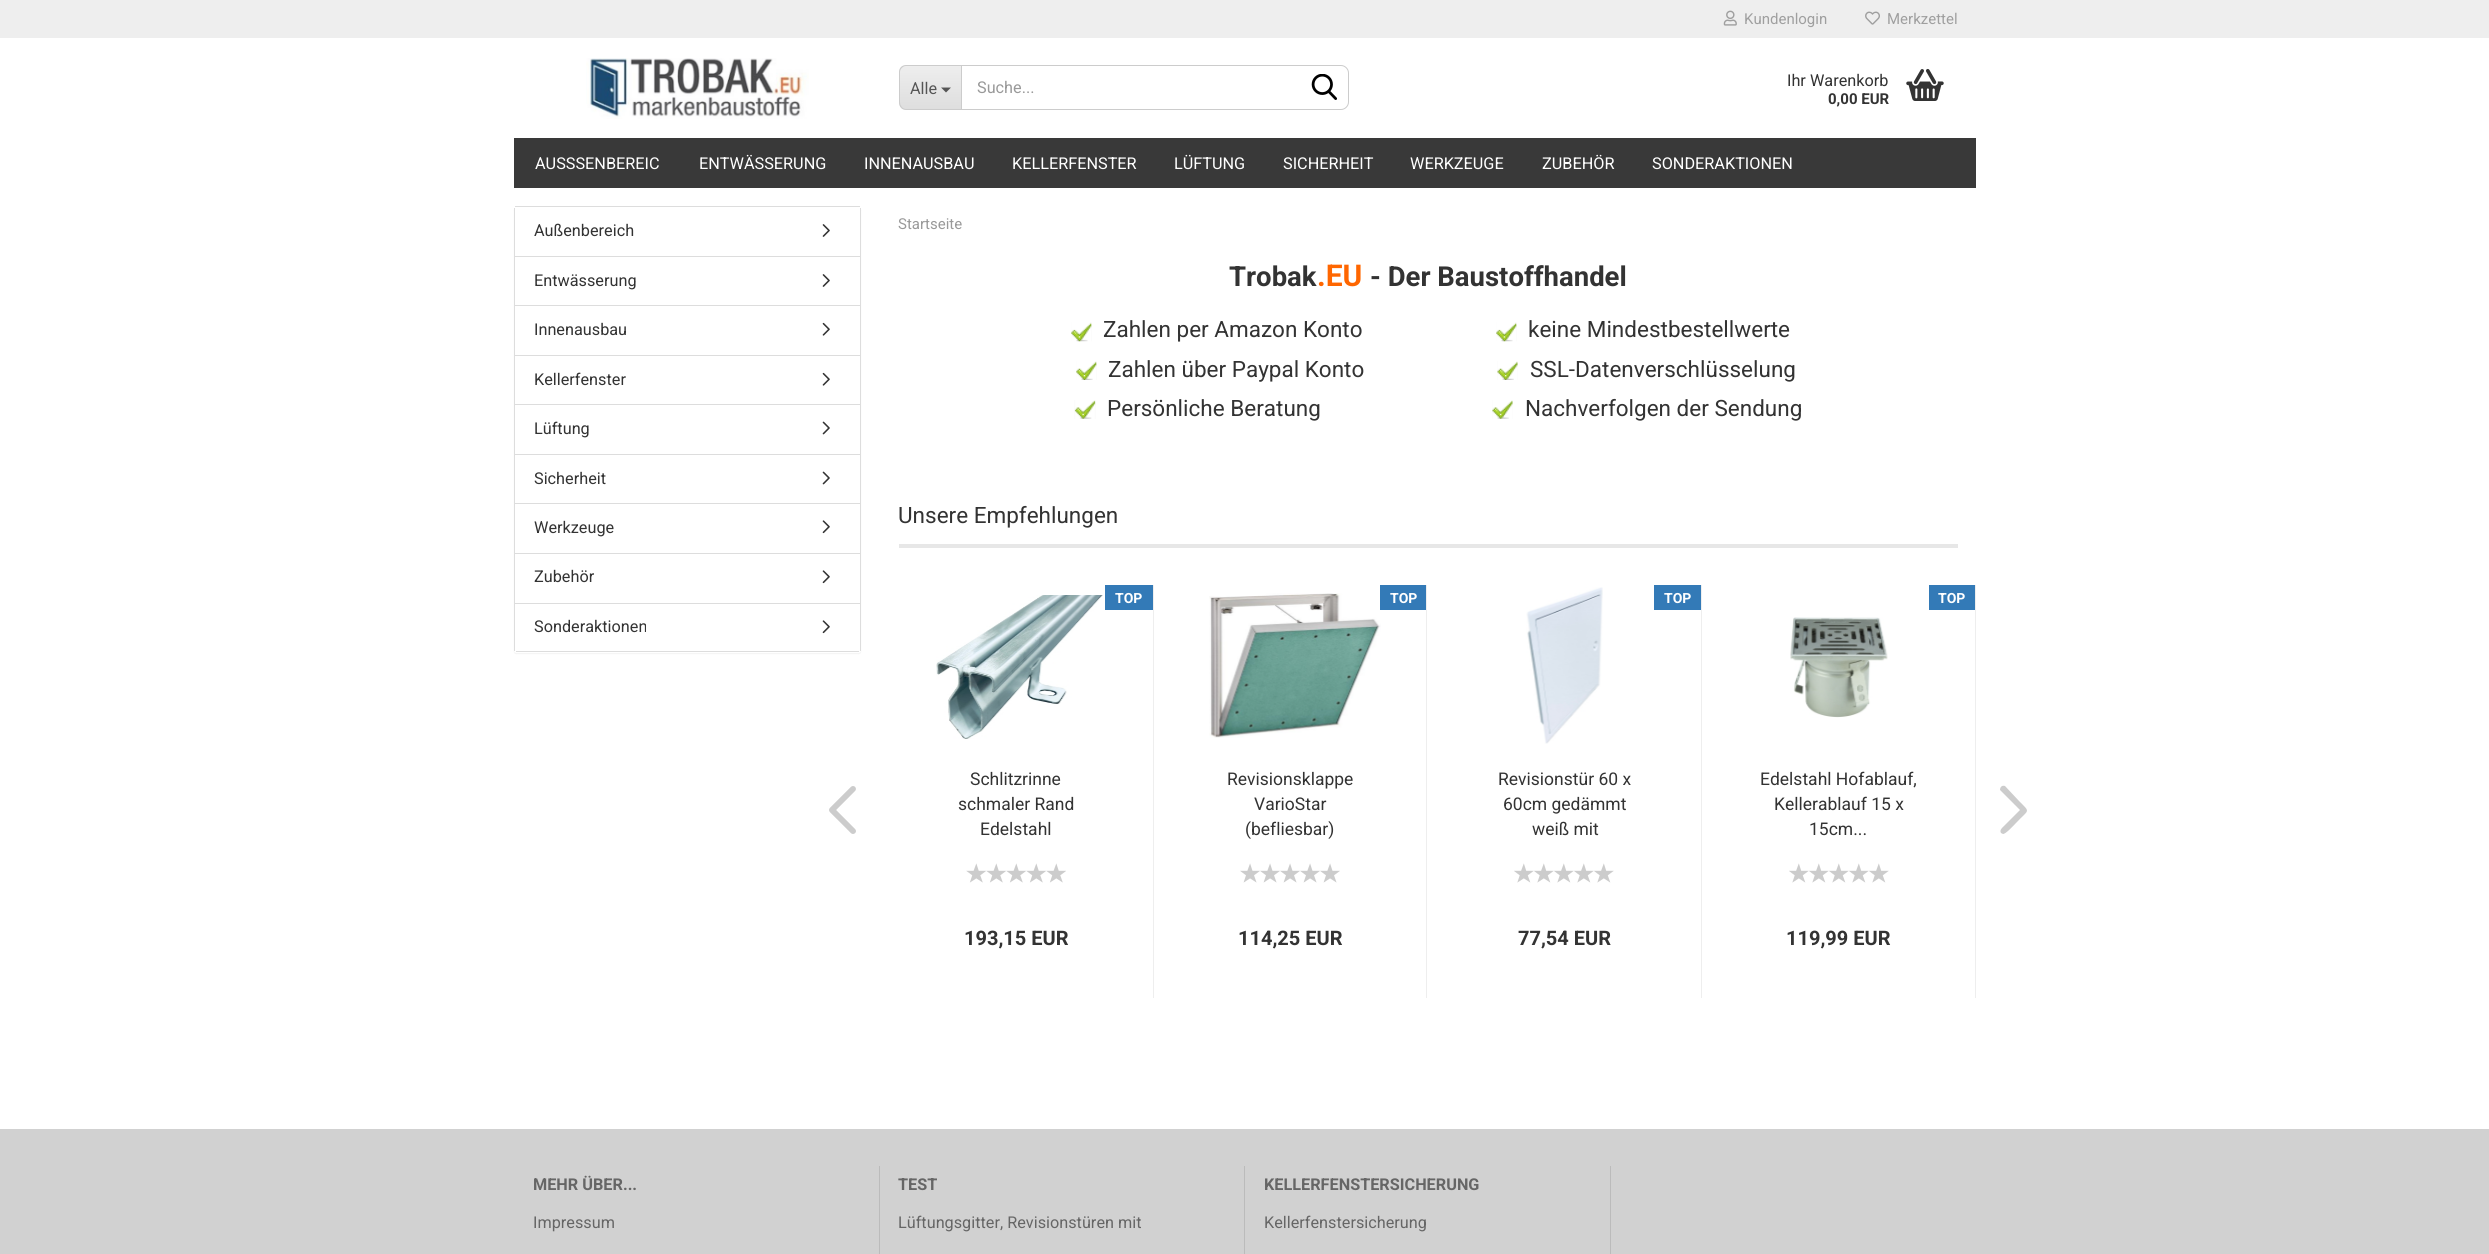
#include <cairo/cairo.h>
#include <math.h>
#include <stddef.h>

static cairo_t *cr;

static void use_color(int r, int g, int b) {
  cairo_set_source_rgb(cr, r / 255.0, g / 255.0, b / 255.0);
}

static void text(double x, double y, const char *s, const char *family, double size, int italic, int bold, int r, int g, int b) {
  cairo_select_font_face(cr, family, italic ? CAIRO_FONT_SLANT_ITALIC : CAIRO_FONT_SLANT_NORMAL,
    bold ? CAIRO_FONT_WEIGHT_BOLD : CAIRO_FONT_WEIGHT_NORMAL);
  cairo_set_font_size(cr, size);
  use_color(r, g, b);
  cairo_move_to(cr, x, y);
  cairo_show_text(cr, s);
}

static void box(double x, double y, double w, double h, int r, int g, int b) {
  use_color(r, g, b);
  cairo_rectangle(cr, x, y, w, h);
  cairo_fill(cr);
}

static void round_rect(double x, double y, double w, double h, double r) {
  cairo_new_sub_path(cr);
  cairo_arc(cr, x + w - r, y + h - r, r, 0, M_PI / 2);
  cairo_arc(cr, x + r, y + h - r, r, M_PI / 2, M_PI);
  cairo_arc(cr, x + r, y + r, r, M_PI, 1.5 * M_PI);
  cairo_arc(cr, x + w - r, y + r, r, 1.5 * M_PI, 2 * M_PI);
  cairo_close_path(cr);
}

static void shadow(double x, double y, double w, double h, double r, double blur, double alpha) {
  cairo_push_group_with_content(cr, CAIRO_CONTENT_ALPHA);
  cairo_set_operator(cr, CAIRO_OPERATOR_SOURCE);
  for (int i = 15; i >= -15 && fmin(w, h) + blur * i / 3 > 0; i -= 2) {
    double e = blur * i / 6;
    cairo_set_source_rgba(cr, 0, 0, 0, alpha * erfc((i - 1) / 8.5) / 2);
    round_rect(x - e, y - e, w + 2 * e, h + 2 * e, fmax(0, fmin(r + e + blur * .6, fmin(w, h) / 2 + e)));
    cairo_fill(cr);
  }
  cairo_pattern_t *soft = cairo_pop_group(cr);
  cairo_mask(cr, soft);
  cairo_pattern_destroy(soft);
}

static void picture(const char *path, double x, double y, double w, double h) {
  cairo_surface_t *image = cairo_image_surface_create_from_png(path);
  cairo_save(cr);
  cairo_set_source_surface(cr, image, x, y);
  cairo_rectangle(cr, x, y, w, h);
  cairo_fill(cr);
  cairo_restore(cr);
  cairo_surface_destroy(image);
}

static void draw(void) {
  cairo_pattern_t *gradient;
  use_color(255, 255, 255);
  cairo_paint(cr);
  box(0, 0, 2489, 38, 238, 238, 238);
  picture("img_01.png", 1723, 10, 14, 16);
  picture("img_02.png", 1865, 11, 15, 14);
  picture("img_03.png", 586, 58, 223, 61);
  cairo_save(cr);
  cairo_new_path(cr);
  cairo_move_to(cr, 907, 65);
  cairo_line_to(cr, 961, 65);
  cairo_line_to(cr, 961, 110);
  cairo_line_to(cr, 907, 110);
  cairo_curve_to(cr, 902.5, 110, 899, 106.5, 899, 102);
  cairo_line_to(cr, 899, 73);
  cairo_curve_to(cr, 899, 68.5, 902.5, 65, 907, 65);
  cairo_close_path(cr);
  cairo_clip(cr);
  gradient = cairo_pattern_create_linear(931, 66, 931, 109);
  cairo_pattern_add_color_stop_rgba(gradient, 0, 0.933, 0.933, 0.933, 1);
  cairo_pattern_add_color_stop_rgba(gradient, 1, 0.871, 0.871, 0.871, 1);
  cairo_set_source(cr, gradient);
  cairo_pattern_destroy(gradient);
  cairo_rectangle(cr, 899, 66, 62, 43);
  cairo_fill(cr);
  cairo_restore(cr);
  use_color(204, 204, 204);
  cairo_set_fill_rule(cr, CAIRO_FILL_RULE_EVEN_ODD);
  cairo_new_path(cr);
  cairo_move_to(cr, 906, 65);
  cairo_line_to(cr, 961, 65);
  cairo_line_to(cr, 961, 110);
  cairo_line_to(cr, 906, 110);
  cairo_curve_to(cr, 902, 110, 899, 107, 899, 102);
  cairo_line_to(cr, 899, 72);
  cairo_curve_to(cr, 899, 68, 902, 65, 906, 65);
  cairo_close_path(cr);
  cairo_move_to(cr, 906, 66);
  cairo_line_to(cr, 961, 66);
  cairo_line_to(cr, 961, 109);
  cairo_line_to(cr, 906, 109);
  cairo_curve_to(cr, 903, 109, 900, 106, 900, 102);
  cairo_line_to(cr, 900, 72);
  cairo_curve_to(cr, 900, 69, 903, 66, 906, 66);
  cairo_close_path(cr);
  cairo_fill(cr);
  use_color(85, 85, 85);
  cairo_set_fill_rule(cr, CAIRO_FILL_RULE_WINDING);
  cairo_new_path(cr);
  cairo_move_to(cr, 941, 87.5);
  cairo_line_to(cr, 951, 87.5);
  cairo_line_to(cr, 946, 92.5);
  cairo_close_path(cr);
  cairo_fill(cr);
  cairo_new_path(cr);
  cairo_move_to(cr, 961.5, 65.5);
  cairo_line_to(cr, 1341, 65.5);
  cairo_curve_to(cr, 1345, 65.5, 1348.5, 69, 1348.5, 73);
  cairo_line_to(cr, 1348.5, 102);
  cairo_curve_to(cr, 1348.5, 106, 1345, 109.5, 1341, 109.5);
  cairo_line_to(cr, 961.5, 109.5);
  cairo_close_path(cr);
  use_color(204, 204, 204);
  cairo_set_line_width(cr, 1);
  cairo_stroke(cr);
  picture("img_04.png", 1311, 74, 26, 26);
  picture("img_05.png", 1906, 68, 38, 33);
  box(514, 138, 1462, 50, 57, 57, 57);
  use_color(0, 0, 0);
  shadow(514, 208, 347, 446, 2.5, 0.5, 0.05);
  use_color(255, 255, 255);
  round_rect(514, 206, 347, 447, 2.5);
  cairo_fill(cr);
  box(515, 206, 345, 1, 221, 221, 221);
  box(860, 208, 1, 443, 221, 221, 221);
  box(514, 208, 1, 443, 221, 221, 221);
  box(515, 256, 345, 1, 221, 221, 221);
  picture("img_06.png", 822, 224, 8, 13);
  box(515, 305, 345, 1, 221, 221, 221);
  picture("img_06.png", 822, 274, 8, 13);
  box(515, 355, 345, 1, 221, 221, 221);
  picture("img_07.png", 822, 322, 8, 14);
  box(515, 404, 345, 1, 221, 221, 221);
  picture("img_07.png", 822, 372, 8, 14);
  box(515, 454, 345, 1, 221, 221, 221);
  picture("img_08.png", 822, 421, 8, 14);
  box(515, 503, 345, 1, 221, 221, 221);
  picture("img_08.png", 822, 471, 8, 14);
  box(515, 553, 345, 1, 221, 221, 221);
  picture("img_09.png", 822, 520, 8, 14);
  box(515, 603, 345, 1, 221, 221, 221);
  picture("img_09.png", 822, 570, 8, 14);
  box(516, 651, 343, 1, 221, 221, 221);
  picture("img_09.png", 822, 620, 8, 14);
  picture("img_10.png", 1071, 322, 21, 20);
  picture("img_10.png", 1496, 322, 21, 20);
  picture("img_11.png", 1076, 361, 21, 19);
  picture("img_12.png", 1497, 361, 21, 19);
  picture("img_13.png", 1074, 400, 22, 19);
  picture("img_14.png", 1492, 400, 21, 19);
  box(899, 544, 1059, 4, 231, 231, 231);
  picture("img_15.png", 829, 786, 27, 48);
  box(1153, 585, 1, 413, 238, 238, 238);
  picture("img_16.png", 936, 595, 167, 144);
  box(1105, 585, 48, 25, 51, 122, 183);
  picture("img_17.png", 966, 863, 20, 20);
  picture("img_17.png", 986, 863, 20, 20);
  picture("img_17.png", 1006, 863, 20, 20);
  picture("img_17.png", 1026, 863, 20, 20);
  picture("img_17.png", 1046, 863, 20, 20);
  box(1426, 585, 1, 413, 238, 238, 238);
  picture("img_18.png", 1209, 593, 172, 145);
  box(1380, 585, 46, 25, 51, 122, 183);
  picture("img_19.png", 1240, 863, 20, 20);
  picture("img_19.png", 1260, 863, 20, 20);
  picture("img_19.png", 1280, 863, 20, 20);
  picture("img_19.png", 1300, 863, 20, 20);
  picture("img_19.png", 1320, 863, 20, 20);
  box(1701, 585, 1, 413, 238, 238, 238);
  picture("img_20.png", 1526, 587, 77, 157);
  box(1654, 585, 47, 25, 51, 122, 183);
  picture("img_21.png", 1514, 863, 20, 20);
  picture("img_21.png", 1534, 863, 20, 20);
  picture("img_21.png", 1554, 863, 20, 20);
  picture("img_21.png", 1574, 863, 20, 20);
  picture("img_21.png", 1594, 863, 20, 20);
  box(1975, 585, 1, 413, 238, 238, 238);
  box(1929, 585, 46, 25, 51, 122, 183);
  picture("img_22.png", 1790, 617, 98, 101);
  picture("img_21.png", 1789, 863, 20, 20);
  picture("img_21.png", 1809, 863, 20, 20);
  picture("img_21.png", 1829, 863, 20, 20);
  picture("img_21.png", 1849, 863, 20, 20);
  picture("img_21.png", 1869, 863, 20, 20);
  use_color(204, 204, 204);
  cairo_new_path(cr);
  cairo_move_to(cr, 2003, 834);
  cairo_line_to(cr, 2001, 833);
  cairo_curve_to(cr, 1999, 830, 2003, 827, 2004, 826);
  cairo_line_to(cr, 2020, 810);
  cairo_line_to(cr, 2000, 790);
  cairo_curve_to(cr, 2000, 787, 2002, 785, 2005, 786);
  cairo_line_to(cr, 2019, 801);
  cairo_curve_to(cr, 2031, 813, 2029, 809, 2016, 823);
  cairo_curve_to(cr, 2014, 825, 2006, 834, 2003, 834);
  cairo_close_path(cr);
  cairo_fill(cr);
  box(0, 1129, 2489, 125, 209, 209, 209);
  box(879, 1166, 1, 88, 187, 187, 187);
  box(1244, 1166, 1, 88, 187, 187, 187);
  box(1610, 1166, 1, 88, 187, 187, 187);
  text(1744, 24, "Kundenlogin", "Roboto", 15, 0, 0, 159, 159, 159);
  text(1887, 24, "Merkzettel", "Roboto", 15, 0, 0, 159, 159, 159);
  text(910, 94, "Alle", "Roboto", 16.25, 0, 0, 85, 85, 85);
  text(977, 93, "Suche...", "Roboto", 16.25, 0, 0, 153, 153, 153);
  text(1787, 86, "Ihr Warenkorb", "Roboto", 16.25, 0, 0, 51, 51, 51);
  text(1828, 104, "0,00 EUR", "Roboto", 15, 0, 1, 51, 51, 51);
  text(535, 169, "AUSSSENBEREIC", "Roboto", 16.25, 0, 0, 255, 255, 255);
  text(699, 169, "ENTWÄSSERUNG", "Roboto", 16.25, 0, 0, 255, 255, 255);
  text(864, 169, "INNENAUSBAU", "Roboto", 16.25, 0, 0, 255, 255, 255);
  text(1012, 169, "KELLERFENSTER", "Roboto", 16.25, 0, 0, 255, 255, 255);
  text(1174, 169, "LÜFTUNG", "Roboto", 16.25, 0, 0, 255, 255, 255);
  text(1283, 169, "SICHERHEIT", "Roboto", 16.25, 0, 0, 255, 255, 255);
  text(1410, 169, "WERKZEUGE", "Roboto", 16.25, 0, 0, 255, 255, 255);
  text(1542, 169, "ZUBEHÖR", "Roboto", 16.25, 0, 0, 255, 255, 255);
  text(1652, 169, "SONDERAKTIONEN", "Roboto", 16.25, 0, 0, 255, 255, 255);
  text(534, 236, "Außenbereich", "Roboto", 16.25, 0, 0, 51, 51, 51);
  text(534, 286, "Entwässerung", "Roboto", 16.25, 0, 0, 51, 51, 51);
  text(534, 335, "Innenausbau", "Roboto", 16.25, 0, 0, 51, 51, 51);
  text(534, 385, "Kellerfenster", "Roboto", 16.25, 0, 0, 51, 51, 51);
  text(534, 434, "Lüftung", "Roboto", 16.25, 0, 0, 51, 51, 51);
  text(534, 484, "Sicherheit", "Roboto", 16.25, 0, 0, 51, 51, 51);
  text(534, 533, "Werkzeuge", "Roboto", 16.25, 0, 0, 51, 51, 51);
  text(534, 582, "Zubehör", "Roboto", 16.25, 0, 0, 51, 51, 51);
  text(534, 632, "Sonderaktionen", "Roboto", 16.25, 0, 0, 51, 51, 51);
  text(898, 229, "Startseite", "Roboto", 15, 0, 0, 153, 153, 153);
  text(1229, 286, "Trobak", "Roboto", 27.5, 0, 1, 51, 51, 51);
  text(1317, 286, ".EU", "Roboto", 30, 0, 1, 255, 102, 0);
  text(1370, 286, "- Der Baustoffhandel", "Roboto", 27.5, 0, 1, 51, 51, 51);
  text(1103, 337, "Zahlen per Amazon Konto", "Roboto", 22.5, 0, 0, 51, 51, 51);
  text(1528, 337, "keine Mindestbestellwerte", "Roboto", 22.5, 0, 0, 51, 51, 51);
  text(1108, 377, "Zahlen über Paypal Konto", "Roboto", 22.5, 0, 0, 51, 51, 51);
  text(1530, 377, "SSL-Datenverschlüsselung", "Roboto", 22.5, 0, 0, 51, 51, 51);
  text(1107, 416, "Persönliche Beratung", "Roboto", 22.5, 0, 0, 51, 51, 51);
  text(1525, 416, "Nachverfolgen der Sendung", "Roboto", 22.5, 0, 0, 51, 51, 51);
  text(898, 523, "Unsere Empfehlungen", "Roboto", 22.5, 0, 0, 51, 51, 51);
  text(1115, 603, "TOP", "Roboto", 14, 0, 1, 255, 255, 255);
  text(970, 785, "Schlitzrinne", "Roboto", 17.5, 0, 0, 51, 51, 51);
  text(958, 810, "schmaler Rand", "Roboto", 17.5, 0, 0, 51, 51, 51);
  text(980, 835, "Edelstahl", "Roboto", 17.5, 0, 0, 51, 51, 51);
  text(964, 945, "193,15 EUR", "Roboto", 20, 0, 1, 51, 51, 51);
  text(1390, 603, "TOP", "Roboto", 14, 0, 1, 255, 255, 255);
  text(1227, 785, "Revisionsklappe", "Roboto", 17.5, 0, 0, 51, 51, 51);
  text(1254, 810, "VarioStar", "Roboto", 17.5, 0, 0, 51, 51, 51);
  text(1245, 835, "(befliesbar)", "Roboto", 17.5, 0, 0, 51, 51, 51);
  text(1238, 945, "114,25 EUR", "Roboto", 20, 0, 1, 51, 51, 51);
  text(1664, 603, "TOP", "Roboto", 14, 0, 1, 255, 255, 255);
  text(1498, 785, "Revisionstür 60 x", "Roboto", 17.5, 0, 0, 51, 51, 51);
  text(1503, 810, "60cm gedämmt", "Roboto", 17.5, 0, 0, 51, 51, 51);
  text(1532, 835, "weiß mit", "Roboto", 17.5, 0, 0, 51, 51, 51);
  text(1518, 945, "77,54 EUR", "Roboto", 20, 0, 1, 51, 51, 51);
  text(1938, 603, "TOP", "Roboto", 14, 0, 1, 255, 255, 255);
  text(1760, 785, "Edelstahl Hofablauf,", "Roboto", 17.5, 0, 0, 51, 51, 51);
  text(1774, 810, "Kellerablauf 15 x", "Roboto", 17.5, 0, 0, 51, 51, 51);
  text(1809, 835, "15cm...", "Roboto", 17.5, 0, 0, 51, 51, 51);
  text(1786, 945, "119,99 EUR", "Roboto", 20, 0, 1, 51, 51, 51);
  text(533, 1190, "MEHR ÜBER...", "Roboto", 16.25, 0, 1, 102, 102, 102);
  text(533, 1228, "Impressum", "Roboto", 16.25, 0, 0, 102, 102, 102);
  text(898, 1190, "TEST", "Roboto", 16.25, 0, 1, 102, 102, 102);
  text(898, 1228, "Lüftungsgitter, Revisionstüren mit", "Roboto", 16.25, 0, 0, 102, 102, 102);
  text(1264, 1190, "KELLERFENSTERSICHERUNG", "Roboto", 16.25, 0, 1, 102, 102, 102);
  text(1264, 1228, "Kellerfenstersicherung", "Roboto", 16.25, 0, 0, 102, 102, 102);
}

int main(void) {
  cairo_surface_t *surface = cairo_image_surface_create(CAIRO_FORMAT_RGB24, 2489, 1254);
  cr = cairo_create(surface);
  cairo_font_options_t *options = cairo_font_options_create();
  cairo_font_options_set_hint_metrics(options, CAIRO_HINT_METRICS_OFF);
  cairo_font_options_set_hint_style(options, CAIRO_HINT_STYLE_NONE);
  cairo_set_font_options(cr, options);
  cairo_set_miter_limit(cr, 4);
  draw();
  cairo_surface_write_to_png(surface, "out.png");
  cairo_font_options_destroy(options);
  cairo_destroy(cr);
  cairo_surface_destroy(surface);
  return 0;
}
